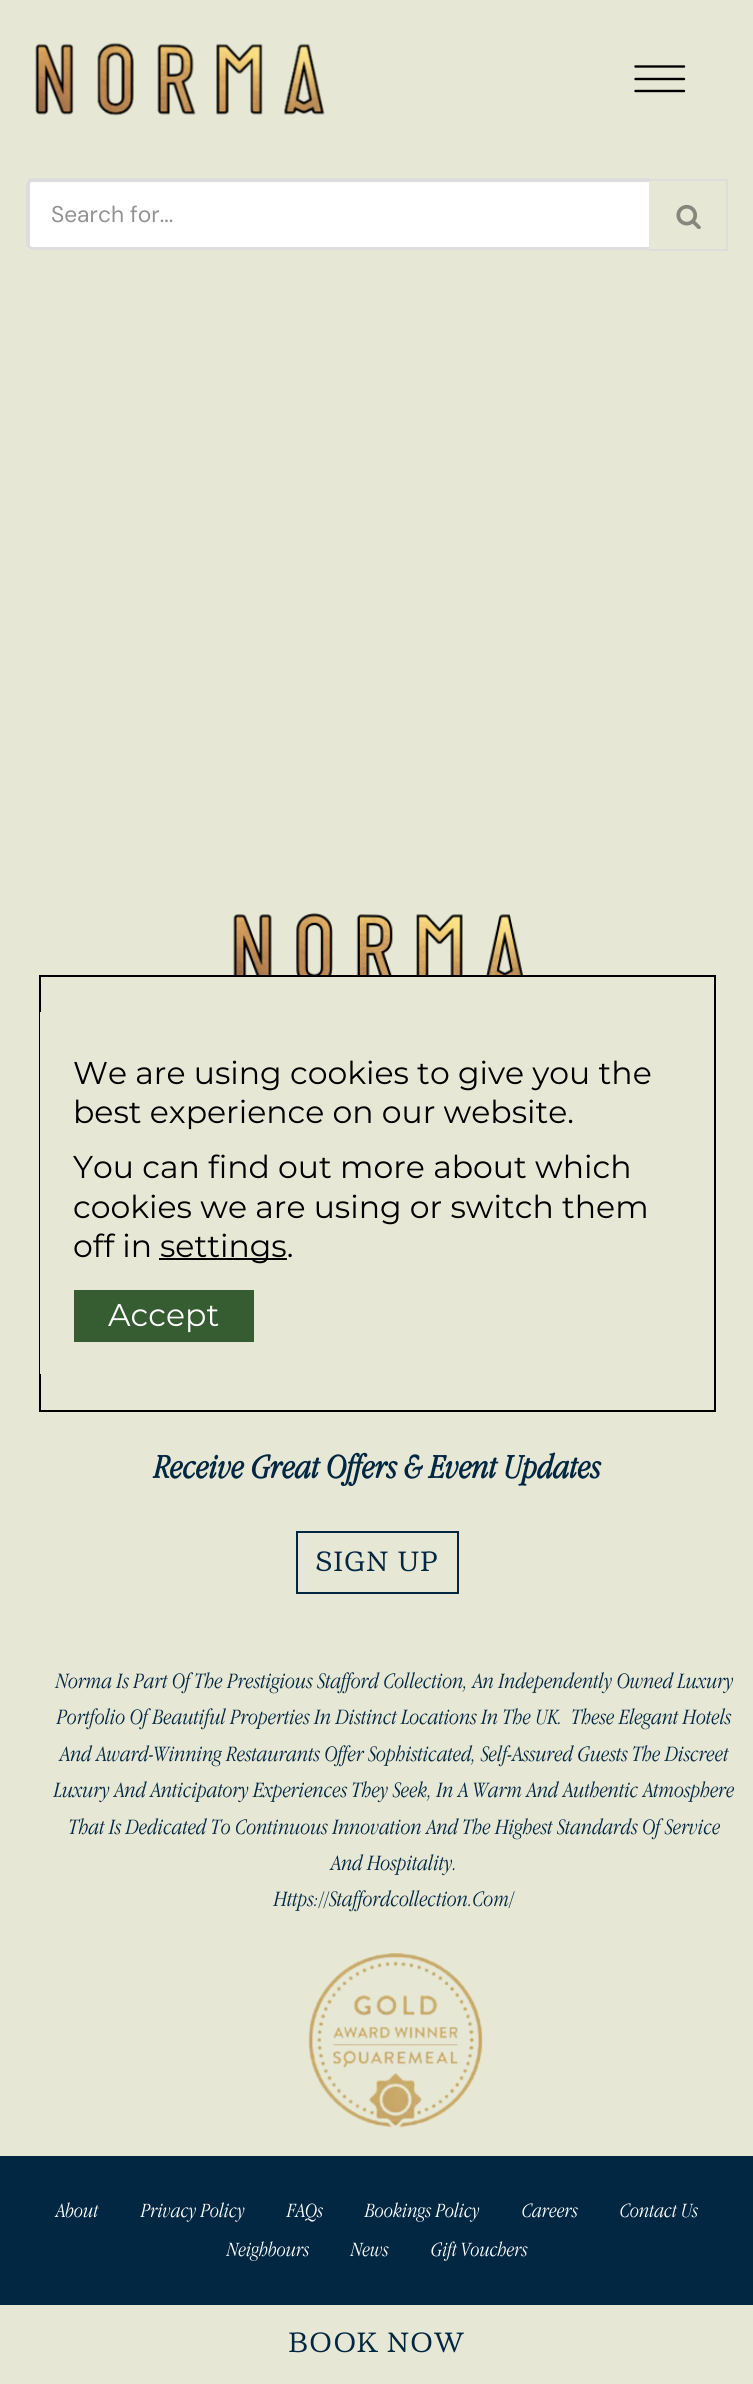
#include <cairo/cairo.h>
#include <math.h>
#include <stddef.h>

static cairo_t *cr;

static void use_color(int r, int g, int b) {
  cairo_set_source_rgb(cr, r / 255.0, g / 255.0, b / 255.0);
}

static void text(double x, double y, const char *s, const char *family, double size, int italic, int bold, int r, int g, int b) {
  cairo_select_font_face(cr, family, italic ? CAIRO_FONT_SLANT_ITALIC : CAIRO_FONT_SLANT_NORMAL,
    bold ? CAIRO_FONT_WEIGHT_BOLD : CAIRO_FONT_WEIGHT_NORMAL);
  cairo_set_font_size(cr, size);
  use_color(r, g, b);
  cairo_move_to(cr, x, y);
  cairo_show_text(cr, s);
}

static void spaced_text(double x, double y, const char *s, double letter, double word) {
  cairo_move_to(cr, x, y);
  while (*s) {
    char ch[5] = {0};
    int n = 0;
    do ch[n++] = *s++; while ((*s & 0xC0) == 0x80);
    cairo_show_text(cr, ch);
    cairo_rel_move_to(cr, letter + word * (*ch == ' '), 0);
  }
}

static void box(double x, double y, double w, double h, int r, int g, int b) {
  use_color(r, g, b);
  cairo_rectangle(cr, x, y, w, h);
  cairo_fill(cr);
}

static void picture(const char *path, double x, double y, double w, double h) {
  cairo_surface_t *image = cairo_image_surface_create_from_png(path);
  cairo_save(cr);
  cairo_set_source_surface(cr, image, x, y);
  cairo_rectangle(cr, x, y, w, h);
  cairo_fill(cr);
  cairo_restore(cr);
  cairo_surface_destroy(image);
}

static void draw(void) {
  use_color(230, 231, 212);
  cairo_paint(cr);
  picture("img_01.png", 35, 42, 290, 74);
  cairo_new_path(cr);
  cairo_move_to(cr, 635.5, 66.5);
  cairo_line_to(cr, 684, 66.5);
  cairo_move_to(cr, 635.5, 79);
  cairo_line_to(cr, 684, 79);
  cairo_move_to(cr, 635.5, 91);
  cairo_line_to(cr, 684, 91);
  use_color(0, 0, 0);
  cairo_set_line_width(cr, 2.4);
  cairo_set_line_cap(cr, CAIRO_LINE_CAP_ROUND);
  cairo_set_line_join(cr, CAIRO_LINE_JOIN_ROUND);
  cairo_stroke(cr);
  use_color(255, 255, 255);
  cairo_new_path(cr);
  cairo_move_to(cr, 31, 179);
  cairo_line_to(cr, 649, 179);
  cairo_line_to(cr, 649, 250);
  cairo_line_to(cr, 31, 250);
  cairo_curve_to(cr, 28, 250, 26, 248, 26, 245);
  cairo_line_to(cr, 26, 184);
  cairo_curve_to(cr, 26, 181, 28, 179, 31, 179);
  cairo_close_path(cr);
  cairo_fill(cr);
  use_color(221, 221, 221);
  cairo_set_fill_rule(cr, CAIRO_FILL_RULE_EVEN_ODD);
  cairo_new_path(cr);
  cairo_move_to(cr, 32, 178);
  cairo_line_to(cr, 649, 178);
  cairo_line_to(cr, 649, 250);
  cairo_line_to(cr, 32, 250);
  cairo_curve_to(cr, 29, 250, 26, 248, 26, 245);
  cairo_line_to(cr, 26, 184);
  cairo_curve_to(cr, 26, 181, 29, 178, 32, 178);
  cairo_close_path(cr);
  cairo_move_to(cr, 32, 182);
  cairo_line_to(cr, 649, 182);
  cairo_line_to(cr, 649, 247);
  cairo_line_to(cr, 32, 247);
  cairo_curve_to(cr, 31, 247, 30, 246, 30, 245);
  cairo_line_to(cr, 30, 184);
  cairo_curve_to(cr, 30, 183, 31, 182, 32, 182);
  cairo_close_path(cr);
  cairo_fill(cr);
  box(649, 179, 79, 2, 221, 221, 221);
  box(726, 179, 2, 71, 221, 221, 221);
  box(649, 249, 79, 2, 221, 221, 221);
  picture("img_02.png", 676, 204, 25, 25);
  picture("img_03.png", 233, 913, 290, 62);
  cairo_rectangle(cr, 297, 1532, 161, 61);
  use_color(2, 39, 67);
  cairo_set_line_width(cr, 2);
  cairo_set_line_cap(cr, CAIRO_LINE_CAP_BUTT);
  cairo_set_line_join(cr, CAIRO_LINE_JOIN_MITER);
  cairo_stroke(cr);
  picture("img_04.png", 308, 1953, 175, 175);
  box(0, 2156, 753, 149, 2, 39, 67);
  cairo_rectangle(cr, 40, 976, 675, 435);
  use_color(0, 0, 0);
  cairo_stroke(cr);
  box(40, 1012, 1, 362, 229, 231, 214);
  box(159, 1258, 128, 2, 0, 0, 0);
  box(74, 1290, 180, 52, 54, 92, 50);
  text(51, 222, "Search for...", "DM Sans", 22.75, 0, 0, 147, 147, 147);
  text(154, 1478, "Receive Great Offers & Event Updates", "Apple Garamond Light", 35, 1, 1, 2, 39, 67);
  cairo_select_font_face(cr, "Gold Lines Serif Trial", CAIRO_FONT_SLANT_NORMAL, CAIRO_FONT_WEIGHT_BOLD);
  cairo_set_font_size(cr, 28);
  spaced_text(315, 1571, "SIGN UP", 1.75, 0);
  text(56, 1688, "Norma Is Part Of The Prestigious Stafford Collection, An Independently Owned Luxury", "Apple Garamond Light Light", 22.75, 1, 0, 2, 39, 67);
  text(57, 1724, "Portfolio Of Beautiful Properties In Distinct Locations In The UK.  These Elegant Hotels", "Apple Garamond Light Light", 22.75, 1, 0, 2, 39, 67);
  text(60, 1761, "And Award-Winning Restaurants Offer Sophisticated, Self-Assured Guests The Discreet", "Apple Garamond Light Light", 22.75, 1, 0, 2, 39, 67);
  text(54, 1797, "Luxury And Anticipatory Experiences They Seek, In A Warm And Authentic Atmosphere", "Apple Garamond Light Light", 22.75, 1, 0, 2, 39, 67);
  text(69, 1834, "That Is Dedicated To Continuous Innovation And The Highest Standards Of Service", "Apple Garamond Light Light", 22.75, 1, 0, 2, 39, 67);
  text(331, 1870, "And Hospitality.", "Apple Garamond Light Light", 22.75, 1, 0, 2, 39, 67);
  text(274, 1906, "Https://Staffordcollection.Com/", "Apple Garamond Light Light", 22.75, 1, 0, 2, 39, 67);
  text(56, 2217, "About", "Apple Garamond Light Light", 21, 1, 0, 255, 255, 255);
  text(141, 2217, "Privacy Policy", "Apple Garamond Light Light", 21, 1, 0, 255, 255, 255);
  text(287, 2217, "FAQs", "Apple Garamond Light Light", 21, 1, 0, 255, 255, 255);
  text(365, 2217, "Bookings Policy", "Apple Garamond Light Light", 21, 1, 0, 255, 255, 255);
  text(522, 2217, "Careers", "Apple Garamond Light Light", 21, 1, 0, 255, 255, 255);
  text(620, 2217, "Contact Us", "Apple Garamond Light Light", 21, 1, 0, 255, 255, 255);
  text(227, 2256, "Neighbours", "Apple Garamond Light Light", 21, 1, 0, 255, 255, 255);
  text(351, 2256, "News", "Apple Garamond Light Light", 21, 1, 0, 255, 255, 255);
  text(431, 2256, "Gift Vouchers", "Apple Garamond Light Light", 21, 1, 0, 255, 255, 255);
  cairo_select_font_face(cr, "Gold Lines Serif Trial", CAIRO_FONT_SLANT_NORMAL, CAIRO_FONT_WEIGHT_BOLD);
  cairo_set_font_size(cr, 28);
  use_color(2, 39, 67);
  spaced_text(289, 2352, "BOOK NOW", 1.75, 0);
  text(73, 1084, "We are using cookies to give you the", "Montserrat", 31.5, 0, 0, 0, 0, 0);
  text(73, 1123, "best experience on our website.", "Montserrat", 31.5, 0, 0, 0, 0, 0);
  text(73, 1178, "You can find out more about which", "Montserrat", 31.5, 0, 0, 0, 0, 0);
  text(73, 1218, "cookies we are using or switch them", "Montserrat", 31.5, 0, 0, 0, 0, 0);
  text(73, 1257, "off in", "Montserrat", 31.5, 0, 0, 0, 0, 0);
  text(160, 1257, "settings.", "Montserrat", 31.5, 0, 0, 0, 0, 0);
  text(108, 1326, "Accept", "Montserrat", 31.5, 0, 0, 255, 255, 255);
}

int main(void) {
  cairo_surface_t *surface = cairo_image_surface_create(CAIRO_FORMAT_RGB24, 753, 2384);
  cr = cairo_create(surface);
  cairo_font_options_t *options = cairo_font_options_create();
  cairo_font_options_set_hint_metrics(options, CAIRO_HINT_METRICS_OFF);
  cairo_font_options_set_hint_style(options, CAIRO_HINT_STYLE_NONE);
  cairo_set_font_options(cr, options);
  cairo_set_miter_limit(cr, 4);
  draw();
  cairo_surface_write_to_png(surface, "out.png");
  cairo_font_options_destroy(options);
  cairo_destroy(cr);
  cairo_surface_destroy(surface);
  return 0;
}
